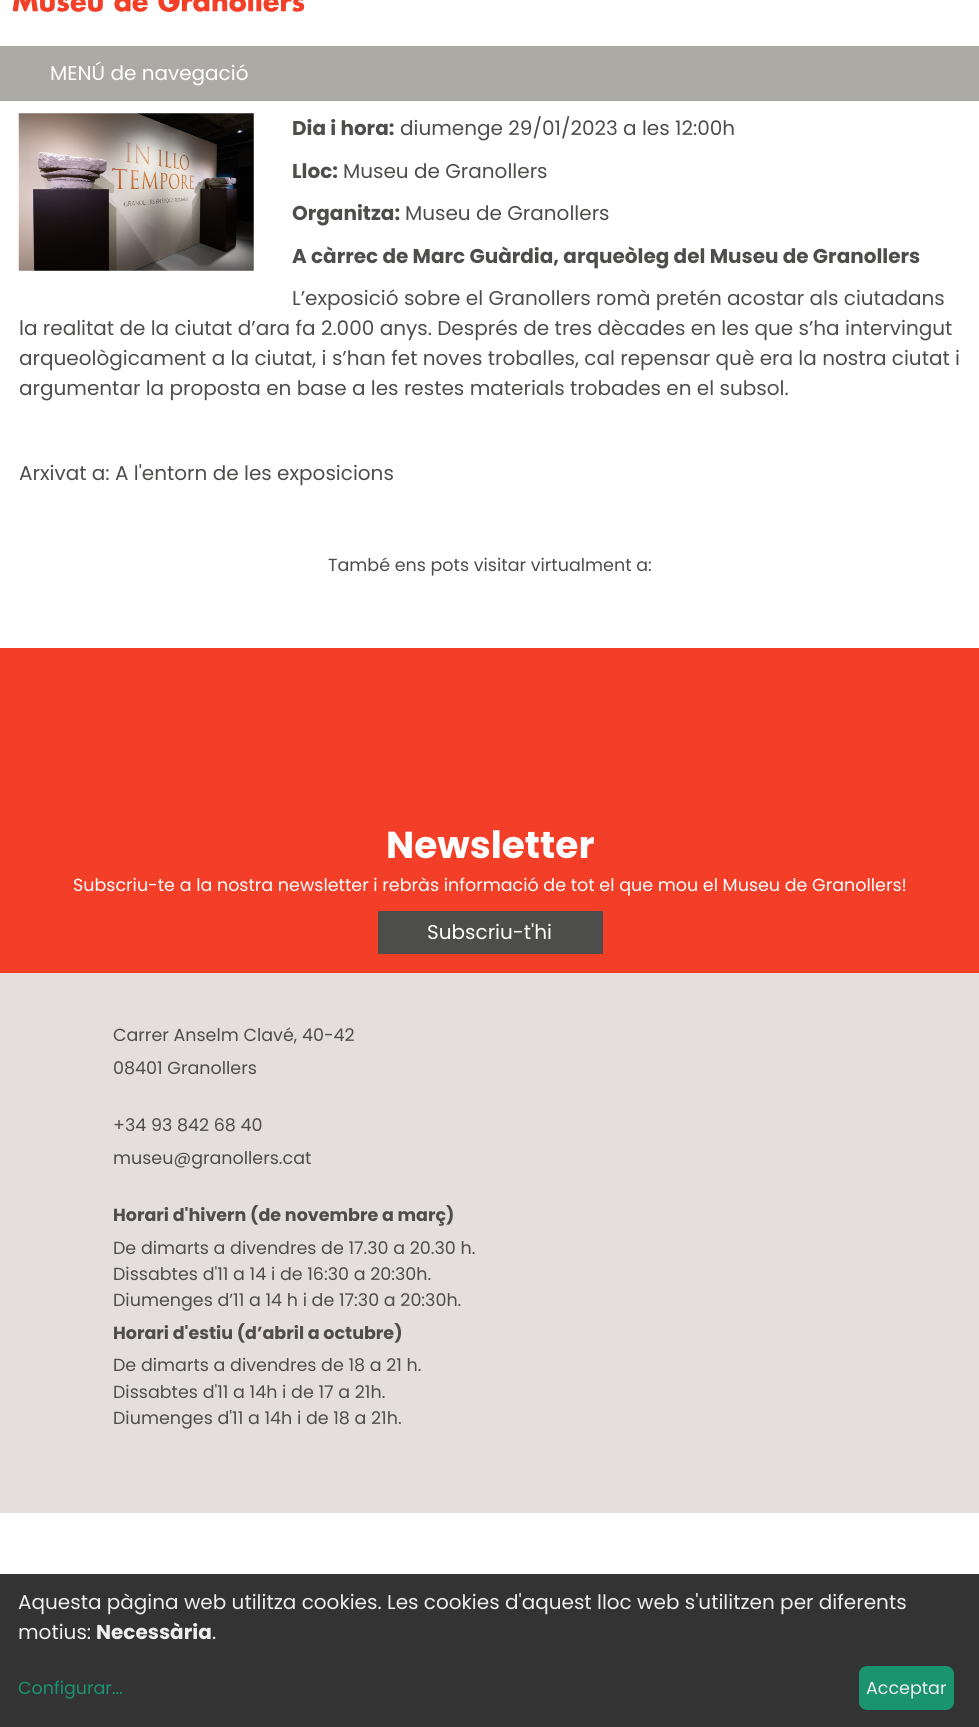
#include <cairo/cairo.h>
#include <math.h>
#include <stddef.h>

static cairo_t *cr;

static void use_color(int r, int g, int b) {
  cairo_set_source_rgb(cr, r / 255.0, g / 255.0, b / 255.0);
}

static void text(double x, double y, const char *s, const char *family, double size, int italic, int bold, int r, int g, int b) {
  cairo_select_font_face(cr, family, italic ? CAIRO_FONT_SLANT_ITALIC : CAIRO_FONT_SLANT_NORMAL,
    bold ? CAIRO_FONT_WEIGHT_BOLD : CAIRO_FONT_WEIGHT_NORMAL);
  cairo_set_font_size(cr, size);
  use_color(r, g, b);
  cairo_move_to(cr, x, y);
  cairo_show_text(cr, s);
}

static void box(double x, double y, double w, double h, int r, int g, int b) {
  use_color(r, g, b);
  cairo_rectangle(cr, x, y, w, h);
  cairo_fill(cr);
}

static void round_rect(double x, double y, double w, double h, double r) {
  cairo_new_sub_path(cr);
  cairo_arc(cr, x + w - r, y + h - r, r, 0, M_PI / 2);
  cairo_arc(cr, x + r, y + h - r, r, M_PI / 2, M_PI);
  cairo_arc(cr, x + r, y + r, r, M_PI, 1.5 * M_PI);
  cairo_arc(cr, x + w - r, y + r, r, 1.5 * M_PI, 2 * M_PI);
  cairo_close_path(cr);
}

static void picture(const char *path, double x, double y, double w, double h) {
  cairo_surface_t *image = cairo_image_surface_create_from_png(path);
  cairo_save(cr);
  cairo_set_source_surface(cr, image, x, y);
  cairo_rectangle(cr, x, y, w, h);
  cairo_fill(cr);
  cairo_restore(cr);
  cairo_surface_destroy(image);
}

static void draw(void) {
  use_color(255, 255, 255);
  cairo_paint(cr);
  picture("img_01.png", 13, 0, 292, 12);
  box(0, 46, 979, 55, 172, 170, 165);
  picture("img_02.png", 18, 113, 236, 158);
  box(0, 648, 979, 325, 244, 63, 40);
  box(378, 911, 225, 43, 77, 78, 76);
  box(0, 973, 979, 540, 228, 222, 221);
  box(0, 1574, 979, 153, 51, 51, 51);
  use_color(26, 147, 111);
  round_rect(859, 1666, 95, 44, 8);
  cairo_fill(cr);
  text(50, 80, "MENÚ de navegació", "Poppins", 20, 0, 0, 255, 255, 255);
  text(292, 135, "Dia i hora:", "Poppins", 20, 0, 1, 77, 78, 76);
  text(400, 135, "diumenge 29/01/2023 a les 12:00h", "Poppins", 20, 0, 0, 77, 78, 76);
  text(292, 178, "Lloc:", "Poppins", 20, 0, 1, 77, 78, 76);
  text(343, 178, "Museu de Granollers", "Poppins", 20, 0, 0, 77, 78, 76);
  text(292, 220, "Organitza:", "Poppins", 20, 0, 1, 77, 78, 76);
  text(405, 220, "Museu de Granollers", "Poppins", 20, 0, 0, 77, 78, 76);
  text(292, 263, "A càrrec de Marc Guàrdia, arqueòleg del Museu de Granollers", "Poppins", 20, 0, 1, 77, 78, 76);
  text(292, 305, "L’exposició sobre el Granollers romà pretén acostar als ciutadans", "Poppins", 20, 0, 0, 77, 78, 76);
  text(19, 335, "la realitat de la ciutat d’ara fa 2.000 anys. Després de tres dècades en les que s’ha intervingut", "Poppins", 20, 0, 0, 77, 78, 76);
  text(19, 365, "arqueològicament a la ciutat, i s’han fet noves troballes, cal repensar què era la nostra ciutat i", "Poppins", 20, 0, 0, 77, 78, 76);
  text(19, 395, "argumentar la proposta en base a les restes materials trobades en el subsol.", "Poppins", 20, 0, 0, 77, 78, 76);
  text(19, 480, "Arxivat a: A l'entorn de les exposicions", "Poppins", 20, 0, 0, 77, 78, 76);
  text(328, 571, "També ens pots visitar virtualment a:", "Poppins", 17.5, 0, 0, 77, 78, 76);
  text(386, 858, "Newsletter", "Poppins", 37.5, 0, 1, 255, 255, 255);
  text(73, 891, "Subscriu-te a la nostra newsletter i rebràs informació de tot el que mou el Museu de Granollers!", "Poppins", 17.5, 0, 0, 255, 255, 255);
  text(427, 939, "Subscriu-t'hi", "Poppins", 20, 0, 0, 255, 255, 255);
  text(113, 1041, "Carrer Anselm Clavé, 40-42", "Poppins", 17.5, 0, 0, 77, 78, 76);
  text(113, 1074, "08401 Granollers", "Poppins", 17.5, 0, 0, 77, 78, 76);
  text(113, 1131, "+34 93 842 68 40", "Poppins", 17.5, 0, 0, 77, 78, 76);
  text(113, 1164, "museu@granollers.cat", "Poppins", 17.5, 0, 0, 77, 78, 76);
  text(113, 1221, "Horari d'hivern (de novembre a març)", "Poppins", 17.5, 0, 1, 77, 78, 76);
  text(113, 1254, "De dimarts a divendres de 17.30 a 20.30 h.", "Poppins", 17.5, 0, 0, 77, 78, 76);
  text(113, 1280, "Dissabtes d'11 a 14 i de 16:30 a 20:30h.", "Poppins", 17.5, 0, 0, 77, 78, 76);
  text(113, 1306, "Diumenges d’11 a 14 h i de 17:30 a 20:30h.", "Poppins", 17.5, 0, 0, 77, 78, 76);
  text(113, 1339, "Horari d'estiu (d’abril a octubre)", "Poppins", 17.5, 0, 1, 77, 78, 76);
  text(113, 1371, "De dimarts a divendres de 18 a 21 h.", "Poppins", 17.5, 0, 0, 77, 78, 76);
  text(113, 1398, "Dissabtes d'11 a 14h i de 17 a 21h.", "Poppins", 17.5, 0, 0, 77, 78, 76);
  text(113, 1424, "Diumenges d'11 a 14h i de 18 a 21h.", "Poppins", 17.5, 0, 0, 77, 78, 76);
  text(18, 1609, "Aquesta pàgina web utilitza cookies. Les cookies d'aquest lloc web s'utilitzen per diferents", "Poppins", 20, 0, 0, 238, 238, 238);
  text(18, 1639, "motius:", "Poppins", 20, 0, 0, 238, 238, 238);
  text(96, 1639, "Necessària", "Poppins", 20, 0, 1, 238, 238, 238);
  text(212, 1639, ".", "Poppins", 20, 0, 0, 238, 238, 238);
  text(18, 1694, "Configurar...", "Poppins", 17.5, 0, 0, 26, 147, 111);
  text(866, 1694, "Acceptar", "Poppins", 17.5, 0, 0, 238, 238, 238);
}

int main(void) {
  cairo_surface_t *surface = cairo_image_surface_create(CAIRO_FORMAT_RGB24, 979, 1727);
  cr = cairo_create(surface);
  cairo_font_options_t *options = cairo_font_options_create();
  cairo_font_options_set_hint_metrics(options, CAIRO_HINT_METRICS_OFF);
  cairo_font_options_set_hint_style(options, CAIRO_HINT_STYLE_NONE);
  cairo_set_font_options(cr, options);
  cairo_set_miter_limit(cr, 4);
  draw();
  cairo_surface_write_to_png(surface, "out.png");
  cairo_font_options_destroy(options);
  cairo_destroy(cr);
  cairo_surface_destroy(surface);
  return 0;
}
